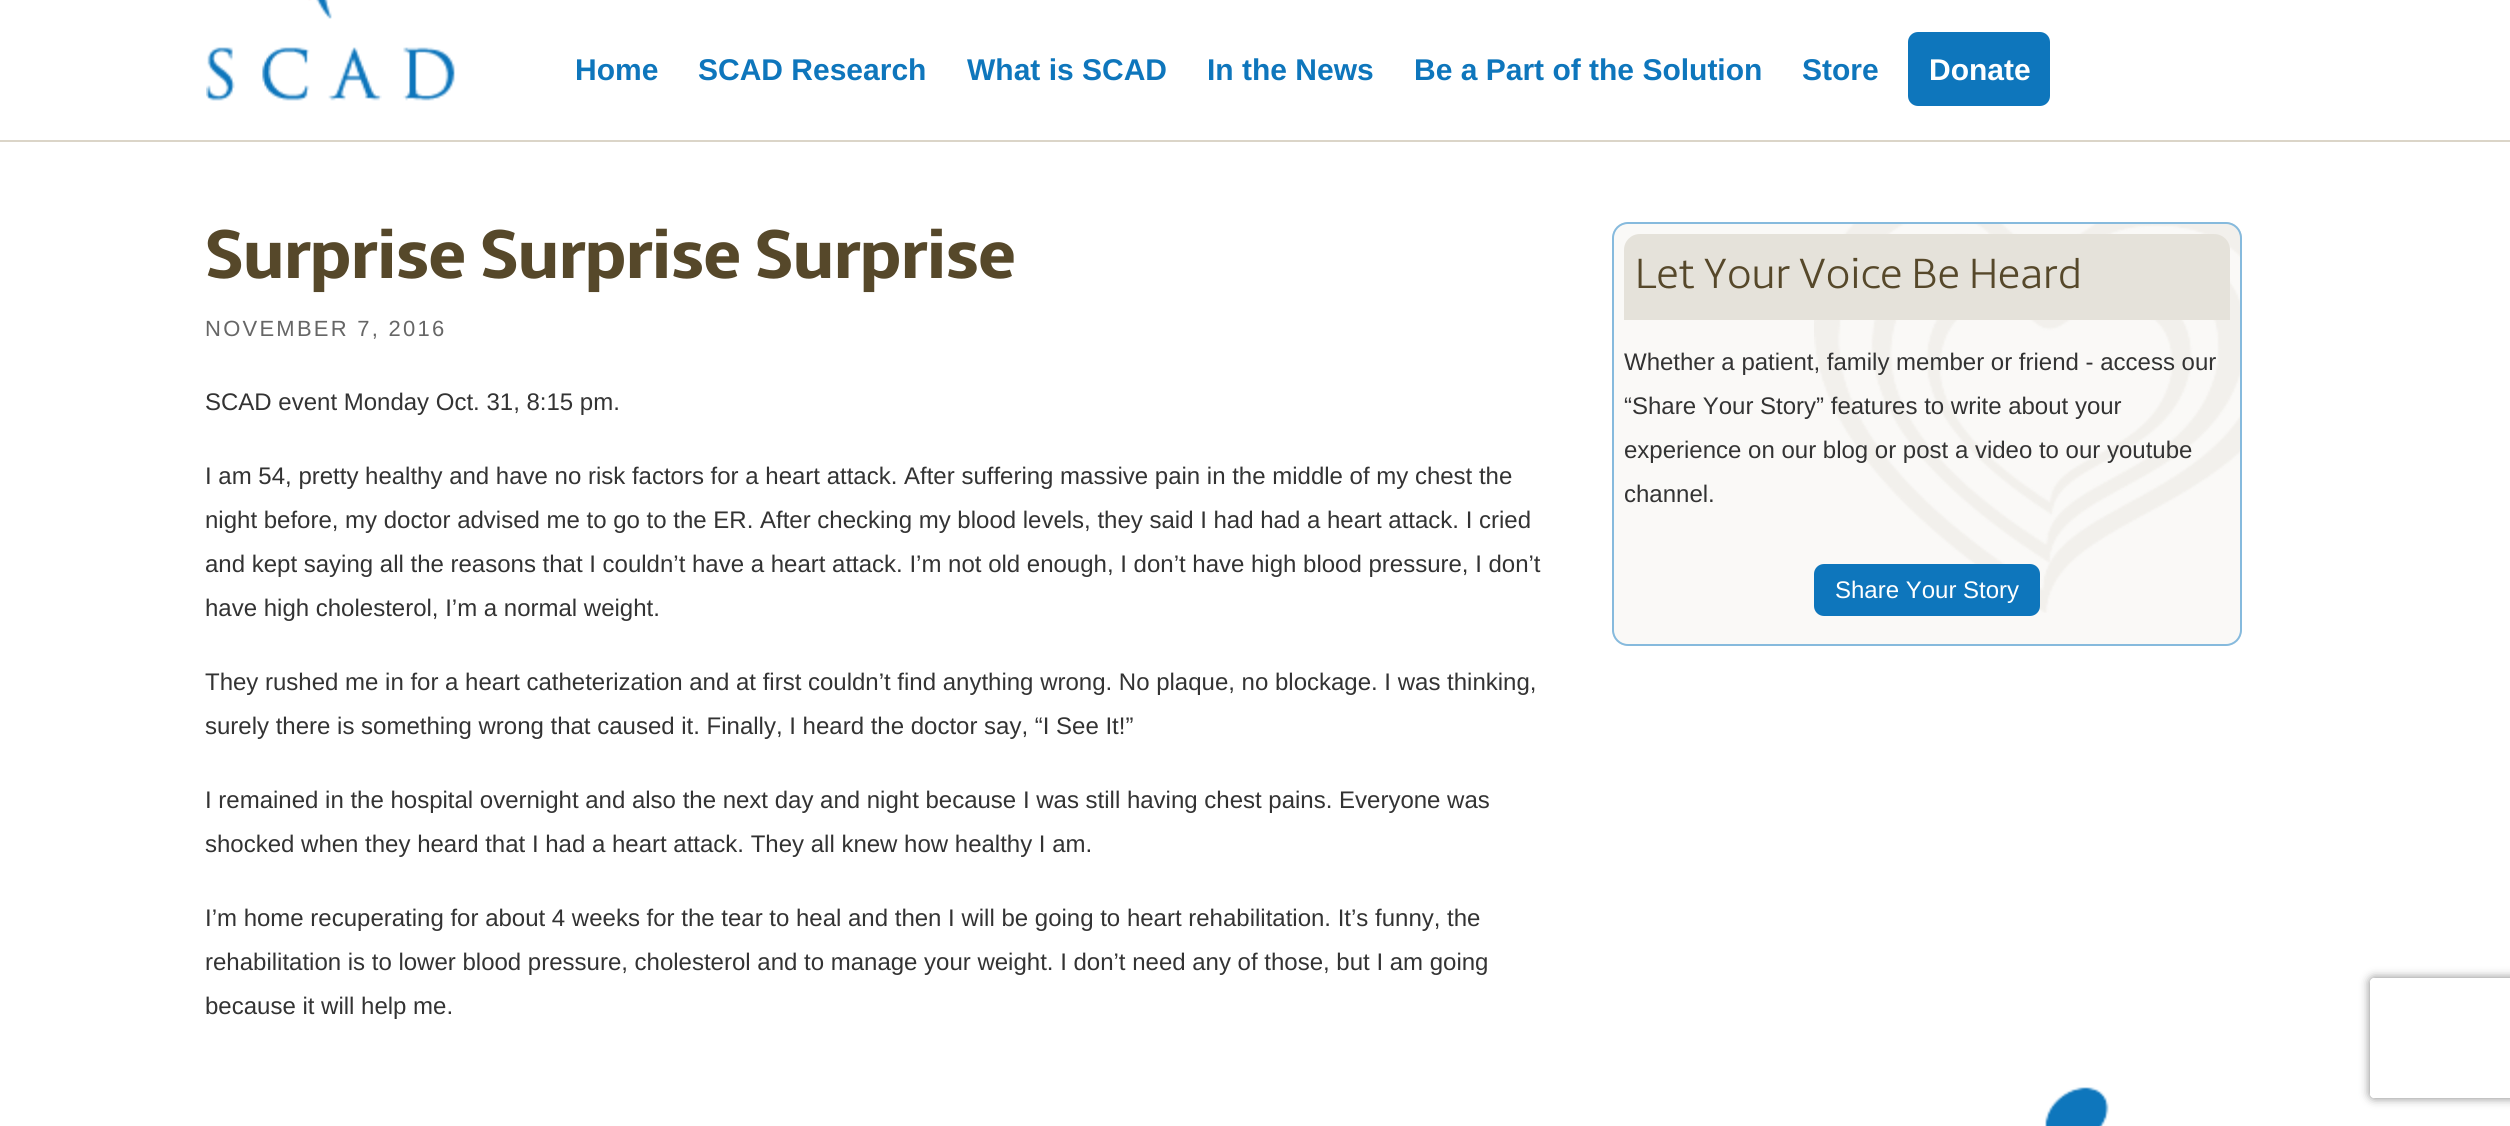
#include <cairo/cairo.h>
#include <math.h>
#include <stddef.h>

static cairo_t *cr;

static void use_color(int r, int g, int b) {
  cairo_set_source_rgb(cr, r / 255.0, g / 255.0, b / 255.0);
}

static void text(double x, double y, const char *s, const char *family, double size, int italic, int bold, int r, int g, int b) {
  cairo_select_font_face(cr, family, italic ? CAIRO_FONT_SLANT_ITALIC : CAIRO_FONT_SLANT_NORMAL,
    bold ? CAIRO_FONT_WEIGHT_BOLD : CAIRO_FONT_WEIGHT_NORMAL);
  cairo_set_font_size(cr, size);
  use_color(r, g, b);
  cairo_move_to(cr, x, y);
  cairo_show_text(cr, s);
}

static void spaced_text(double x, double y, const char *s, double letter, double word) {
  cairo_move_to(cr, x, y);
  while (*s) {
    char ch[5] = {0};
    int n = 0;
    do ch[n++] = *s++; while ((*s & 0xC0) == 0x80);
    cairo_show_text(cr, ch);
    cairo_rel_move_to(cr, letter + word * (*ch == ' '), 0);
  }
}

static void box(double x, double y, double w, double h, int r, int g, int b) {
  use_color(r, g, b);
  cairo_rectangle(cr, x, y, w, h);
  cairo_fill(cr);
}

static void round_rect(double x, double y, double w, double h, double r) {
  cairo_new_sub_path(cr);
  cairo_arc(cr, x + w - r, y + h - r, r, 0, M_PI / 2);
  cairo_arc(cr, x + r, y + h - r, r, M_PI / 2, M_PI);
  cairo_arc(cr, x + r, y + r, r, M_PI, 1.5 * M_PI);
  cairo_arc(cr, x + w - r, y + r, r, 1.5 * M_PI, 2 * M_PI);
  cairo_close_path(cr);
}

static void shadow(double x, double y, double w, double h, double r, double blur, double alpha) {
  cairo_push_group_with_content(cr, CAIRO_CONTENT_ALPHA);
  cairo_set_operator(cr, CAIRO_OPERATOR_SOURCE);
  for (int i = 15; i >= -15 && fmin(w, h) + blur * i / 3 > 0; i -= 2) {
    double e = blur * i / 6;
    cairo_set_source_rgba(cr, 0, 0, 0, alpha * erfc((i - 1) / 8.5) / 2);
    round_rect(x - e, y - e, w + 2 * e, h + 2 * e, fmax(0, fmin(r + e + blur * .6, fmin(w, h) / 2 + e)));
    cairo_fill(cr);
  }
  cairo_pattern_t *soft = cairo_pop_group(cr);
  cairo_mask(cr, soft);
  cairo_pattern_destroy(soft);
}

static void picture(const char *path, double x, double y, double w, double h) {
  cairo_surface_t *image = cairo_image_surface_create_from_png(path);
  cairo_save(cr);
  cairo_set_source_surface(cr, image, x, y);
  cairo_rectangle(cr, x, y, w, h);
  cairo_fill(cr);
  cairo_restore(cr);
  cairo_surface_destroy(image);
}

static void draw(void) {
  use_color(255, 255, 255);
  cairo_paint(cr);
  picture("img_01.png", 206, 0, 249, 101);
  box(0, 140, 2510, 2, 219, 213, 200);
  use_color(14, 118, 188);
  round_rect(1908, 32, 142, 74, 10);
  cairo_fill(cr);
  use_color(250, 249, 247);
  round_rect(1612, 222, 630, 424, 16);
  cairo_fill(cr);
  picture("img_02.png", 1814, 222, 428, 391);
  round_rect(1613, 223, 628, 422, 15);
  use_color(134, 186, 221);
  cairo_stroke(cr);
  use_color(229, 226, 218);
  cairo_new_path(cr);
  cairo_move_to(cr, 1640, 234);
  cairo_line_to(cr, 2214, 234);
  cairo_curve_to(cr, 2223, 234, 2230, 241, 2230, 250);
  cairo_line_to(cr, 2230, 320);
  cairo_line_to(cr, 1624, 320);
  cairo_line_to(cr, 1624, 250);
  cairo_curve_to(cr, 1624, 241, 1631, 234, 1640, 234);
  cairo_close_path(cr);
  cairo_fill(cr);
  use_color(14, 118, 188);
  round_rect(1814, 564, 226, 52, 10);
  cairo_fill(cr);
  picture("img_03.png", 2045, 1087, 64, 39);
  cairo_save(cr);
  cairo_set_fill_rule(cr, CAIRO_FILL_RULE_EVEN_ODD);
  cairo_new_path(cr);
  cairo_move_to(cr, 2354, 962);
  cairo_line_to(cr, 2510, 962);
  cairo_line_to(cr, 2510, 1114);
  cairo_line_to(cr, 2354, 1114);
  cairo_close_path(cr);
  cairo_move_to(cr, 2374, 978);
  cairo_line_to(cr, 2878, 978);
  cairo_curve_to(cr, 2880, 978, 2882, 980, 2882, 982);
  cairo_line_to(cr, 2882, 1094);
  cairo_curve_to(cr, 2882, 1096, 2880, 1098, 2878, 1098);
  cairo_line_to(cr, 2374, 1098);
  cairo_curve_to(cr, 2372, 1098, 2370, 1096, 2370, 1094);
  cairo_line_to(cr, 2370, 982);
  cairo_curve_to(cr, 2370, 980, 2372, 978, 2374, 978);
  cairo_close_path(cr);
  cairo_clip(cr);
  use_color(128, 128, 128);
  shadow(2370, 978, 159, 120, 4, 5, 1);
  cairo_restore(cr);
  text(575, 80, "Home", "Liberation Sans", 30, 0, 1, 14, 118, 188);
  text(698, 80, "SCAD Research", "Liberation Sans", 30, 0, 1, 14, 118, 188);
  text(967, 80, "What is SCAD", "Liberation Sans", 30, 0, 1, 14, 118, 188);
  text(1207, 80, "In the News", "Liberation Sans", 30, 0, 1, 14, 118, 188);
  text(1414, 80, "Be a Part of the Solution", "Liberation Sans", 30, 0, 1, 14, 118, 188);
  text(1802, 80, "Store", "Liberation Sans", 30, 0, 1, 14, 118, 188);
  text(1929, 80, "Donate", "Liberation Sans", 30, 0, 1, 255, 255, 255);
  cairo_select_font_face(cr, "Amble", CAIRO_FONT_SLANT_NORMAL, CAIRO_FONT_WEIGHT_BOLD);
  cairo_set_font_size(cr, 72);
  use_color(86, 72, 42);
  spaced_text(205, 278, "Surprise Surprise Surprise", -2, 0);
  cairo_select_font_face(cr, "Liberation Sans", CAIRO_FONT_SLANT_NORMAL, CAIRO_FONT_WEIGHT_NORMAL);
  cairo_set_font_size(cr, 22);
  use_color(102, 102, 102);
  spaced_text(205, 336, "NOVEMBER 7, 2016", 2.25, 0);
  text(205, 410, "SCAD event Monday Oct. 31, 8:15 pm.", "Liberation Sans", 24, 0, 0, 51, 51, 51);
  text(205, 484, "I am 54, pretty healthy and have no risk factors for a heart attack. After suffering massive pain in the middle of my chest the", "Liberation Sans", 24, 0, 0, 51, 51, 51);
  text(205, 528, "night before, my doctor advised me to go to the ER. After checking my blood levels, they said I had had a heart attack. I cried", "Liberation Sans", 24, 0, 0, 51, 51, 51);
  text(205, 572, "and kept saying all the reasons that I couldn’t have a heart attack. I’m not old enough, I don’t have high blood pressure, I don’t", "Liberation Sans", 24, 0, 0, 51, 51, 51);
  text(205, 616, "have high cholesterol, I’m a normal weight.", "Liberation Sans", 24, 0, 0, 51, 51, 51);
  text(205, 690, "They rushed me in for a heart catheterization and at first couldn’t find anything wrong. No plaque, no blockage. I was thinking,", "Liberation Sans", 24, 0, 0, 51, 51, 51);
  text(205, 734, "surely there is something wrong that caused it. Finally, I heard the doctor say, “I See It!”", "Liberation Sans", 24, 0, 0, 51, 51, 51);
  text(205, 808, "I remained in the hospital overnight and also the next day and night because I was still having chest pains. Everyone was", "Liberation Sans", 24, 0, 0, 51, 51, 51);
  text(205, 852, "shocked when they heard that I had a heart attack. They all knew how healthy I am.", "Liberation Sans", 24, 0, 0, 51, 51, 51);
  text(205, 926, "I’m home recuperating for about 4 weeks for the tear to heal and then I will be going to heart rehabilitation. It’s funny, the", "Liberation Sans", 24, 0, 0, 51, 51, 51);
  text(205, 970, "rehabilitation is to lower blood pressure, cholesterol and to manage your weight. I don’t need any of those, but I am going", "Liberation Sans", 24, 0, 0, 51, 51, 51);
  text(205, 1014, "because it will help me.", "Liberation Sans", 24, 0, 0, 51, 51, 51);
  cairo_select_font_face(cr, "Amble Light", CAIRO_FONT_SLANT_NORMAL, CAIRO_FONT_WEIGHT_NORMAL);
  cairo_set_font_size(cr, 44);
  use_color(86, 72, 42);
  spaced_text(1634, 288, "Let Your Voice Be Heard", -2, 0);
  text(1624, 370, "Whether a patient, family member or friend - access our", "Liberation Sans", 24, 0, 0, 51, 51, 51);
  text(1624, 414, "“Share Your Story” features to write about your", "Liberation Sans", 24, 0, 0, 51, 51, 51);
  text(1624, 458, "experience on our blog or post a video to our youtube", "Liberation Sans", 24, 0, 0, 51, 51, 51);
  text(1624, 502, "channel.", "Liberation Sans", 24, 0, 0, 51, 51, 51);
  text(1835, 598, "Share Your Story", "Liberation Sans", 24, 0, 0, 255, 255, 255);
}

int main(void) {
  cairo_surface_t *surface = cairo_image_surface_create(CAIRO_FORMAT_RGB24, 2510, 1126);
  cr = cairo_create(surface);
  cairo_font_options_t *options = cairo_font_options_create();
  cairo_font_options_set_hint_metrics(options, CAIRO_HINT_METRICS_OFF);
  cairo_font_options_set_hint_style(options, CAIRO_HINT_STYLE_NONE);
  cairo_set_font_options(cr, options);
  cairo_set_miter_limit(cr, 4);
  draw();
  cairo_surface_write_to_png(surface, "out.png");
  cairo_font_options_destroy(options);
  cairo_destroy(cr);
  cairo_surface_destroy(surface);
  return 0;
}
